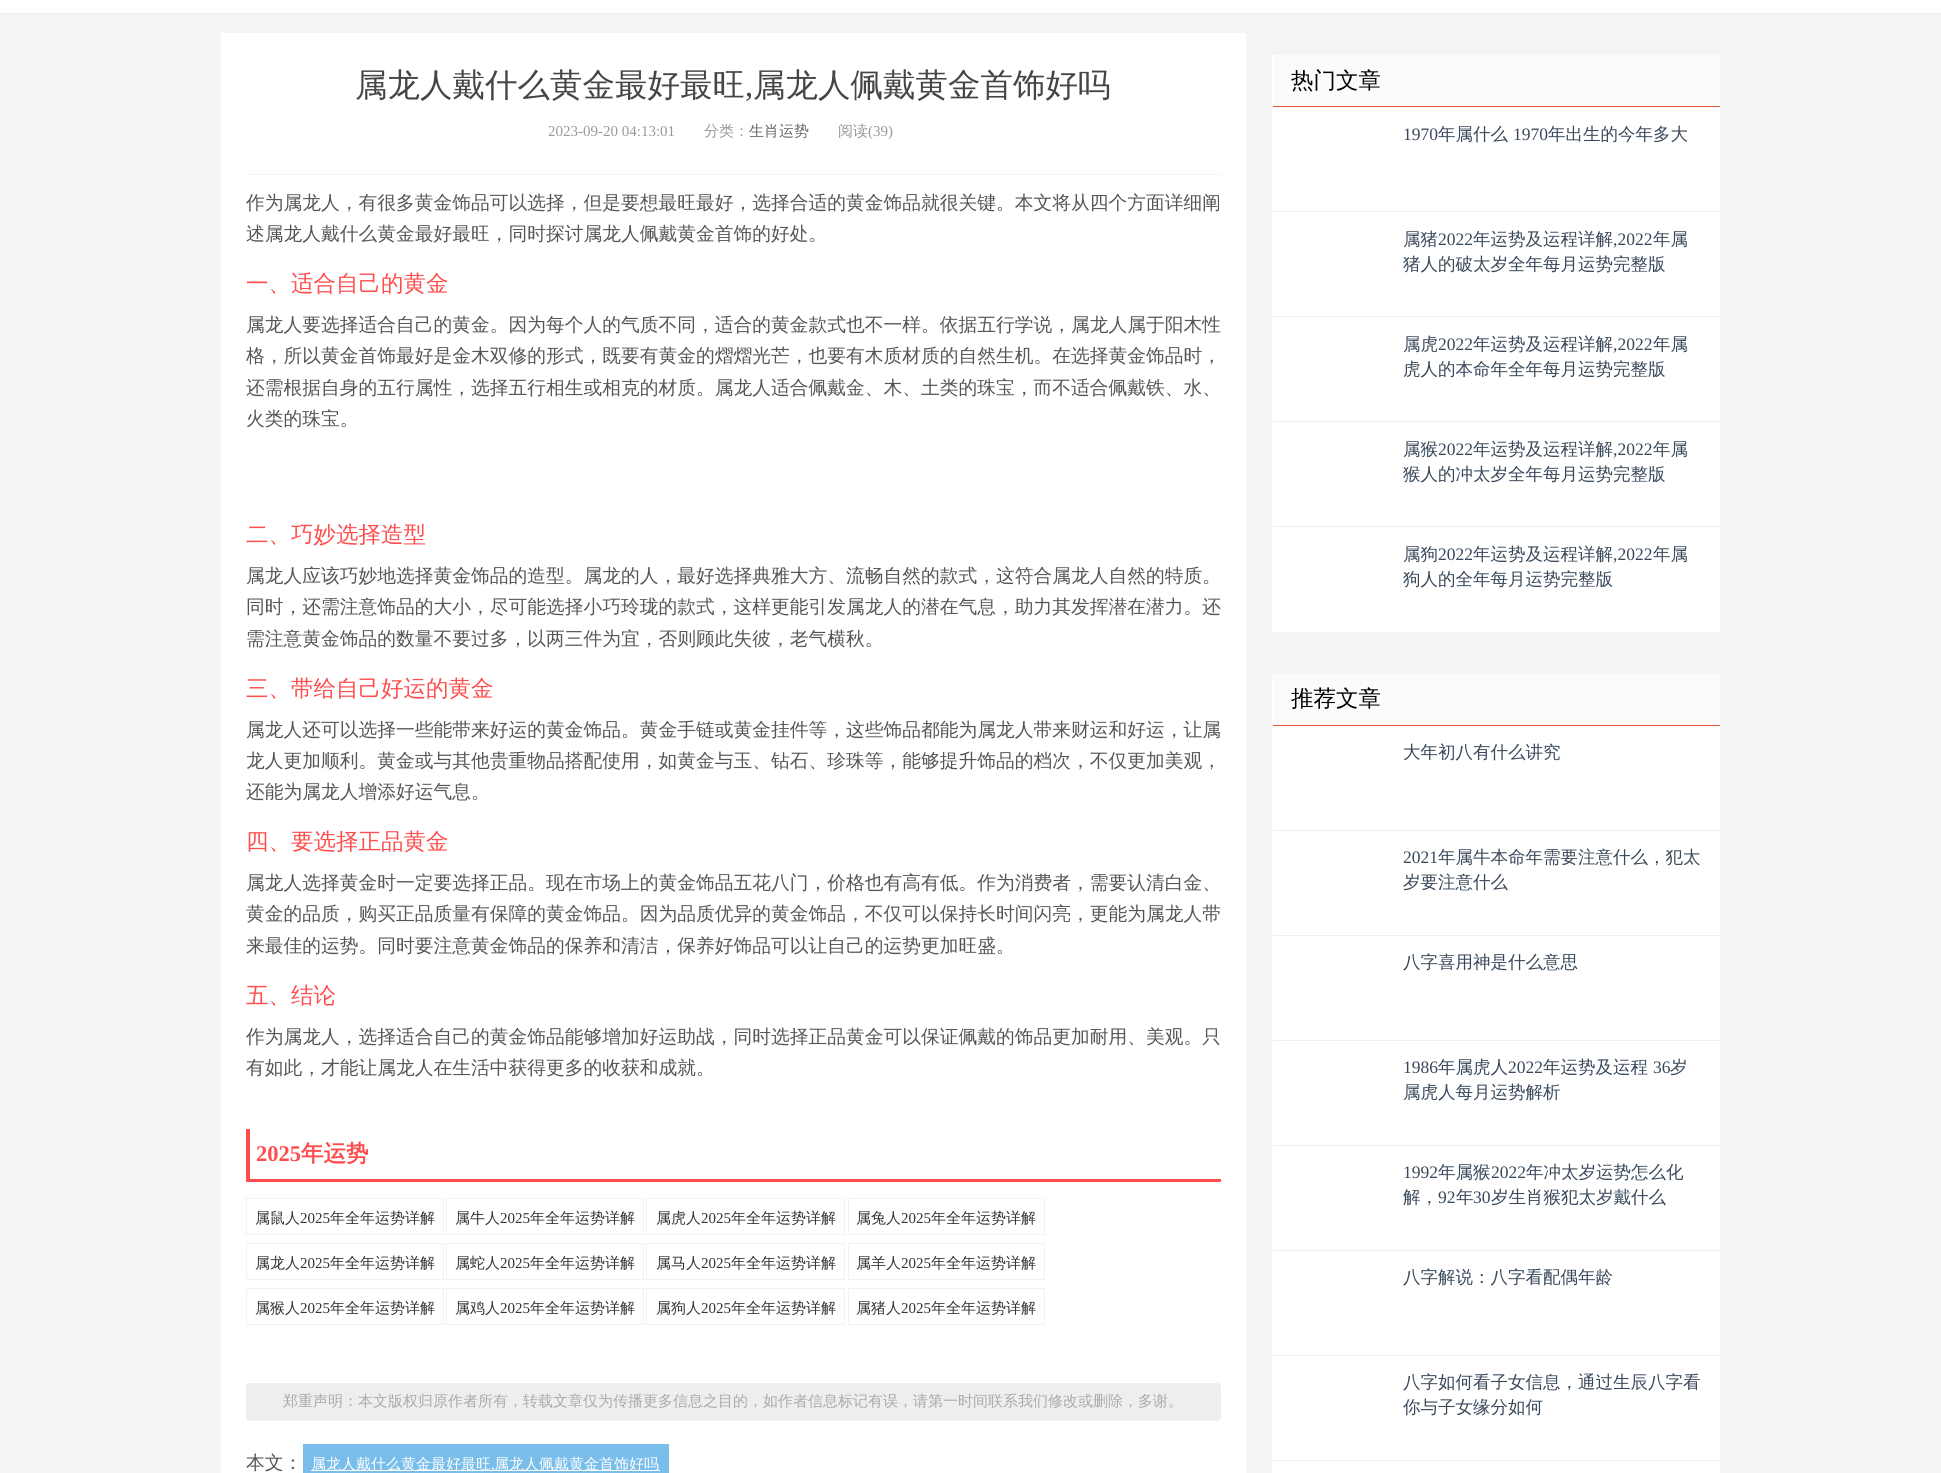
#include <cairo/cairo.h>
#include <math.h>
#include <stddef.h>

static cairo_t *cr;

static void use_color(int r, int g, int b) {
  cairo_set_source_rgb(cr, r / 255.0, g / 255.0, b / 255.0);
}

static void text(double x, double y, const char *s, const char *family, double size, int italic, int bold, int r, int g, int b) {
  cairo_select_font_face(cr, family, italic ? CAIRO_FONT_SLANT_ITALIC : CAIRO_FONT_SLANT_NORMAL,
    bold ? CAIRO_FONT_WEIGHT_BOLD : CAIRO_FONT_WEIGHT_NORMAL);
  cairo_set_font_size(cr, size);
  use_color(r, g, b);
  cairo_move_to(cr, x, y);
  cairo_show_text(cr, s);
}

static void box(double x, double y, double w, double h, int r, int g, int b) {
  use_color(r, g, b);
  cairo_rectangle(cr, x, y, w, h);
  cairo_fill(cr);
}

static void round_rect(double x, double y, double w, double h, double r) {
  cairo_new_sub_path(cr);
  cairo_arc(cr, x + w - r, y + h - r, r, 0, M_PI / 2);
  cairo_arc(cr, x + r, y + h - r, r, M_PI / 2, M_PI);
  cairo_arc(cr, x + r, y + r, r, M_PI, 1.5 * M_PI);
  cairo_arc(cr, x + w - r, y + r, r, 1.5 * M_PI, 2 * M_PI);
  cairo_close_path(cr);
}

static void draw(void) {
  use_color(245, 245, 245);
  cairo_paint(cr);
  box(0, 0, 1941, 13, 255, 255, 255);
  box(0, 13, 1941, 1, 235, 235, 235);
  box(221, 33, 1025, 1440, 255, 255, 255);
  box(246, 174, 975, 1, 243, 245, 247);
  box(246, 1179, 975, 3, 255, 76, 76);
  box(246, 1129, 4, 52, 255, 76, 76);
  cairo_rectangle(cr, 246.5, 1198.5, 197, 36);
  use_color(242, 242, 242);
  cairo_set_line_width(cr, 1);
  cairo_stroke(cr);
  cairo_rectangle(cr, 446.5, 1198.5, 197, 36);
  cairo_stroke(cr);
  cairo_rectangle(cr, 646.5, 1198.5, 198, 36);
  cairo_stroke(cr);
  cairo_rectangle(cr, 848.5, 1198.5, 196, 36);
  cairo_stroke(cr);
  cairo_rectangle(cr, 246.5, 1243.5, 197, 36);
  cairo_stroke(cr);
  cairo_rectangle(cr, 446.5, 1243.5, 197, 36);
  cairo_stroke(cr);
  cairo_rectangle(cr, 646.5, 1243.5, 198, 36);
  cairo_stroke(cr);
  cairo_rectangle(cr, 848.5, 1243.5, 196, 36);
  cairo_stroke(cr);
  cairo_rectangle(cr, 246.5, 1288.5, 197, 36);
  cairo_stroke(cr);
  cairo_rectangle(cr, 446.5, 1288.5, 197, 36);
  cairo_stroke(cr);
  cairo_rectangle(cr, 646.5, 1288.5, 198, 36);
  cairo_stroke(cr);
  cairo_rectangle(cr, 848.5, 1288.5, 196, 36);
  cairo_stroke(cr);
  use_color(238, 238, 238);
  round_rect(246, 1383, 975, 38, 4);
  cairo_fill(cr);
  box(303, 1444, 366, 29, 121, 190, 234);
  box(311, 1470, 349, 1, 255, 255, 255);
  box(1272, 55, 448, 577, 255, 255, 255);
  box(1273, 55, 447, 53, 251, 251, 251);
  box(1273, 106, 447, 1, 225, 92, 52);
  box(1273, 211, 447, 1, 238, 238, 238);
  box(1273, 316, 447, 1, 238, 238, 238);
  box(1273, 421, 447, 1, 238, 238, 238);
  box(1273, 526, 447, 1, 238, 238, 238);
  box(1272, 674, 448, 799, 255, 255, 255);
  box(1273, 674, 447, 51, 251, 251, 251);
  box(1273, 725, 447, 1, 225, 92, 52);
  box(1273, 830, 447, 1, 238, 238, 238);
  box(1273, 935, 447, 1, 238, 238, 238);
  box(1273, 1040, 447, 1, 238, 238, 238);
  box(1273, 1145, 447, 1, 238, 238, 238);
  box(1273, 1250, 447, 1, 238, 238, 238);
  box(1273, 1355, 447, 1, 238, 238, 238);
  box(1273, 1460, 447, 1, 238, 238, 238);
  text(355, 96, "属龙人戴什么黄金最好最旺", "WenQuanYi Zen Hei Medium", 32.5, 0, 0, 69, 69, 69);
  text(745, 96, ",", "Liberation Serif", 32.5, 0, 0, 69, 69, 69);
  text(753, 96, "属龙人佩戴黄金首饰好吗", "WenQuanYi Zen Hei Medium", 32.5, 0, 0, 69, 69, 69);
  text(548, 136, "2023-09-20 04:13:01", "Liberation Serif", 15, 0, 0, 153, 153, 153);
  text(704, 136, "分类：", "WenQuanYi Zen Hei Medium", 15, 0, 0, 153, 153, 153);
  text(749, 136, "生肖运势", "WenQuanYi Zen Hei Medium", 15, 0, 0, 102, 102, 102);
  text(838, 136, "阅读", "WenQuanYi Zen Hei Medium", 15, 0, 0, 153, 153, 153);
  text(868, 136, "(39)", "Liberation Serif", 15, 0, 0, 153, 153, 153);
  text(246, 209, "作为属龙人，有很多黄金饰品可以选择，但是要想最旺最好，选择合适的黄金饰品就很关键。本文将从四个方面详细阐", "WenQuanYi Zen Hei Medium", 18.75, 0, 0, 85, 85, 85);
  text(246, 240, "述属龙人戴什么黄金最好最旺，同时探讨属龙人佩戴黄金首饰的好处。", "WenQuanYi Zen Hei Medium", 18.75, 0, 0, 85, 85, 85);
  text(246, 291, "一、适合自己的黄金", "WenQuanYi Zen Hei Medium", 22.5, 0, 0, 255, 76, 76);
  text(246, 331, "属龙人要选择适合自己的黄金。因为每个人的气质不同，适合的黄金款式也不一样。依据五行学说，属龙人属于阳木性", "WenQuanYi Zen Hei Medium", 18.75, 0, 0, 85, 85, 85);
  text(246, 362, "格，所以黄金首饰最好是金木双修的形式，既要有黄金的熠熠光芒，也要有木质材质的自然生机。在选择黄金饰品时，", "WenQuanYi Zen Hei Medium", 18.75, 0, 0, 85, 85, 85);
  text(246, 394, "还需根据自身的五行属性，选择五行相生或相克的材质。属龙人适合佩戴金、木、土类的珠宝，而不适合佩戴铁、水、", "WenQuanYi Zen Hei Medium", 18.75, 0, 0, 85, 85, 85);
  text(246, 425, "火类的珠宝。", "WenQuanYi Zen Hei Medium", 18.75, 0, 0, 85, 85, 85);
  text(246, 542, "二、巧妙选择造型", "WenQuanYi Zen Hei Medium", 22.5, 0, 0, 255, 76, 76);
  text(246, 582, "属龙人应该巧妙地选择黄金饰品的造型。属龙的人，最好选择典雅大方、流畅自然的款式，这符合属龙人自然的特质。", "WenQuanYi Zen Hei Medium", 18.75, 0, 0, 85, 85, 85);
  text(246, 613, "同时，还需注意饰品的大小，尽可能选择小巧玲珑的款式，这样更能引发属龙人的潜在气息，助力其发挥潜在潜力。还", "WenQuanYi Zen Hei Medium", 18.75, 0, 0, 85, 85, 85);
  text(246, 645, "需注意黄金饰品的数量不要过多，以两三件为宜，否则顾此失彼，老气横秋。", "WenQuanYi Zen Hei Medium", 18.75, 0, 0, 85, 85, 85);
  text(246, 696, "三、带给自己好运的黄金", "WenQuanYi Zen Hei Medium", 22.5, 0, 0, 255, 76, 76);
  text(246, 736, "属龙人还可以选择一些能带来好运的黄金饰品。黄金手链或黄金挂件等，这些饰品都能为属龙人带来财运和好运，让属", "WenQuanYi Zen Hei Medium", 18.75, 0, 0, 85, 85, 85);
  text(246, 767, "龙人更加顺利。黄金或与其他贵重物品搭配使用，如黄金与玉、钻石、珍珠等，能够提升饰品的档次，不仅更加美观，", "WenQuanYi Zen Hei Medium", 18.75, 0, 0, 85, 85, 85);
  text(246, 798, "还能为属龙人增添好运气息。", "WenQuanYi Zen Hei Medium", 18.75, 0, 0, 85, 85, 85);
  text(246, 849, "四、要选择正品黄金", "WenQuanYi Zen Hei Medium", 22.5, 0, 0, 255, 76, 76);
  text(246, 889, "属龙人选择黄金时一定要选择正品。现在市场上的黄金饰品五花八门，价格也有高有低。作为消费者，需要认清白金、", "WenQuanYi Zen Hei Medium", 18.75, 0, 0, 85, 85, 85);
  text(246, 920, "黄金的品质，购买正品质量有保障的黄金饰品。因为品质优异的黄金饰品，不仅可以保持长时间闪亮，更能为属龙人带", "WenQuanYi Zen Hei Medium", 18.75, 0, 0, 85, 85, 85);
  text(246, 952, "来最佳的运势。同时要注意黄金饰品的保养和清洁，保养好饰品可以让自己的运势更加旺盛。", "WenQuanYi Zen Hei Medium", 18.75, 0, 0, 85, 85, 85);
  text(246, 1003, "五、结论", "WenQuanYi Zen Hei Medium", 22.5, 0, 0, 255, 76, 76);
  text(246, 1043, "作为属龙人，选择适合自己的黄金饰品能够增加好运助战，同时选择正品黄金可以保证佩戴的饰品更加耐用、美观。只", "WenQuanYi Zen Hei Medium", 18.75, 0, 0, 85, 85, 85);
  text(246, 1074, "有如此，才能让属龙人在生活中获得更多的收获和成就。", "WenQuanYi Zen Hei Medium", 18.75, 0, 0, 85, 85, 85);
  text(256, 1161, "2025", "Liberation Serif", 22.5, 0, 1, 255, 76, 76);
  text(301, 1161, "年运势", "WenQuanYi Zen Hei", 22.5, 0, 1, 255, 76, 76);
  text(255, 1223, "属鼠人", "WenQuanYi Zen Hei Medium", 15, 0, 0, 51, 51, 51);
  text(300, 1223, "2025", "Liberation Serif", 15, 0, 0, 51, 51, 51);
  text(330, 1223, "年全年运势详解", "WenQuanYi Zen Hei Medium", 15, 0, 0, 51, 51, 51);
  text(455, 1223, "属牛人", "WenQuanYi Zen Hei Medium", 15, 0, 0, 51, 51, 51);
  text(500, 1223, "2025", "Liberation Serif", 15, 0, 0, 51, 51, 51);
  text(530, 1223, "年全年运势详解", "WenQuanYi Zen Hei Medium", 15, 0, 0, 51, 51, 51);
  text(656, 1223, "属虎人", "WenQuanYi Zen Hei Medium", 15, 0, 0, 51, 51, 51);
  text(701, 1223, "2025", "Liberation Serif", 15, 0, 0, 51, 51, 51);
  text(731, 1223, "年全年运势详解", "WenQuanYi Zen Hei Medium", 15, 0, 0, 51, 51, 51);
  text(856, 1223, "属兔人", "WenQuanYi Zen Hei Medium", 15, 0, 0, 51, 51, 51);
  text(901, 1223, "2025", "Liberation Serif", 15, 0, 0, 51, 51, 51);
  text(931, 1223, "年全年运势详解", "WenQuanYi Zen Hei Medium", 15, 0, 0, 51, 51, 51);
  text(255, 1268, "属龙人", "WenQuanYi Zen Hei Medium", 15, 0, 0, 51, 51, 51);
  text(300, 1268, "2025", "Liberation Serif", 15, 0, 0, 51, 51, 51);
  text(330, 1268, "年全年运势详解", "WenQuanYi Zen Hei Medium", 15, 0, 0, 51, 51, 51);
  text(455, 1268, "属蛇人", "WenQuanYi Zen Hei Medium", 15, 0, 0, 51, 51, 51);
  text(500, 1268, "2025", "Liberation Serif", 15, 0, 0, 51, 51, 51);
  text(530, 1268, "年全年运势详解", "WenQuanYi Zen Hei Medium", 15, 0, 0, 51, 51, 51);
  text(656, 1268, "属马人", "WenQuanYi Zen Hei Medium", 15, 0, 0, 51, 51, 51);
  text(701, 1268, "2025", "Liberation Serif", 15, 0, 0, 51, 51, 51);
  text(731, 1268, "年全年运势详解", "WenQuanYi Zen Hei Medium", 15, 0, 0, 51, 51, 51);
  text(856, 1268, "属羊人", "WenQuanYi Zen Hei Medium", 15, 0, 0, 51, 51, 51);
  text(901, 1268, "2025", "Liberation Serif", 15, 0, 0, 51, 51, 51);
  text(931, 1268, "年全年运势详解", "WenQuanYi Zen Hei Medium", 15, 0, 0, 51, 51, 51);
  text(255, 1313, "属猴人", "WenQuanYi Zen Hei Medium", 15, 0, 0, 51, 51, 51);
  text(300, 1313, "2025", "Liberation Serif", 15, 0, 0, 51, 51, 51);
  text(330, 1313, "年全年运势详解", "WenQuanYi Zen Hei Medium", 15, 0, 0, 51, 51, 51);
  text(455, 1313, "属鸡人", "WenQuanYi Zen Hei Medium", 15, 0, 0, 51, 51, 51);
  text(500, 1313, "2025", "Liberation Serif", 15, 0, 0, 51, 51, 51);
  text(530, 1313, "年全年运势详解", "WenQuanYi Zen Hei Medium", 15, 0, 0, 51, 51, 51);
  text(656, 1313, "属狗人", "WenQuanYi Zen Hei Medium", 15, 0, 0, 51, 51, 51);
  text(701, 1313, "2025", "Liberation Serif", 15, 0, 0, 51, 51, 51);
  text(731, 1313, "年全年运势详解", "WenQuanYi Zen Hei Medium", 15, 0, 0, 51, 51, 51);
  text(856, 1313, "属猪人", "WenQuanYi Zen Hei Medium", 15, 0, 0, 51, 51, 51);
  text(901, 1313, "2025", "Liberation Serif", 15, 0, 0, 51, 51, 51);
  text(931, 1313, "年全年运势详解", "WenQuanYi Zen Hei Medium", 15, 0, 0, 51, 51, 51);
  text(283, 1406, "郑重声明：本文版权归原作者所有，转载文章仅为传播更多信息之目的，如作者信息标记有误，请第一时间联系我们修改或删除，多谢。", "WenQuanYi Zen Hei Medium", 15, 0, 0, 170, 170, 170);
  text(246, 1469, "本文：", "WenQuanYi Zen Hei Medium", 18.75, 0, 0, 85, 85, 85);
  text(311, 1469, "属龙人戴什么黄金最好最旺", "WenQuanYi Zen Hei Medium", 15, 0, 0, 255, 255, 255);
  text(491, 1469, ",", "Liberation Serif", 15, 0, 0, 255, 255, 255);
  text(494, 1469, "属龙人佩戴黄金首饰好吗", "WenQuanYi Zen Hei Medium", 15, 0, 0, 255, 255, 255);
  text(1291, 88, "热门文章", "WenQuanYi Zen Hei Medium", 22.5, 0, 0, 0, 0, 0);
  text(1403, 140, "1970", "Liberation Serif", 17.5, 0, 0, 56, 72, 90);
  text(1438, 140, "年属什么", "WenQuanYi Zen Hei Medium", 17.5, 0, 0, 56, 72, 90);
  text(1513, 140, "1970", "Liberation Serif", 17.5, 0, 0, 56, 72, 90);
  text(1548, 140, "年出生的今年多大", "WenQuanYi Zen Hei Medium", 17.5, 0, 0, 56, 72, 90);
  text(1403, 245, "属猪", "WenQuanYi Zen Hei Medium", 17.5, 0, 0, 56, 72, 90);
  text(1438, 245, "2022", "Liberation Serif", 17.5, 0, 0, 56, 72, 90);
  text(1473, 245, "年运势及运程详解", "WenQuanYi Zen Hei Medium", 17.5, 0, 0, 56, 72, 90);
  text(1613, 245, ",2022", "Liberation Serif", 17.5, 0, 0, 56, 72, 90);
  text(1653, 245, "年属", "WenQuanYi Zen Hei Medium", 17.5, 0, 0, 56, 72, 90);
  text(1403, 270, "猪人的破太岁全年每月运势完整版", "WenQuanYi Zen Hei Medium", 17.5, 0, 0, 56, 72, 90);
  text(1403, 350, "属虎", "WenQuanYi Zen Hei Medium", 17.5, 0, 0, 56, 72, 90);
  text(1438, 350, "2022", "Liberation Serif", 17.5, 0, 0, 56, 72, 90);
  text(1473, 350, "年运势及运程详解", "WenQuanYi Zen Hei Medium", 17.5, 0, 0, 56, 72, 90);
  text(1613, 350, ",2022", "Liberation Serif", 17.5, 0, 0, 56, 72, 90);
  text(1653, 350, "年属", "WenQuanYi Zen Hei Medium", 17.5, 0, 0, 56, 72, 90);
  text(1403, 375, "虎人的本命年全年每月运势完整版", "WenQuanYi Zen Hei Medium", 17.5, 0, 0, 56, 72, 90);
  text(1403, 455, "属猴", "WenQuanYi Zen Hei Medium", 17.5, 0, 0, 56, 72, 90);
  text(1438, 455, "2022", "Liberation Serif", 17.5, 0, 0, 56, 72, 90);
  text(1473, 455, "年运势及运程详解", "WenQuanYi Zen Hei Medium", 17.5, 0, 0, 56, 72, 90);
  text(1613, 455, ",2022", "Liberation Serif", 17.5, 0, 0, 56, 72, 90);
  text(1653, 455, "年属", "WenQuanYi Zen Hei Medium", 17.5, 0, 0, 56, 72, 90);
  text(1403, 480, "猴人的冲太岁全年每月运势完整版", "WenQuanYi Zen Hei Medium", 17.5, 0, 0, 56, 72, 90);
  text(1403, 560, "属狗", "WenQuanYi Zen Hei Medium", 17.5, 0, 0, 56, 72, 90);
  text(1438, 560, "2022", "Liberation Serif", 17.5, 0, 0, 56, 72, 90);
  text(1473, 560, "年运势及运程详解", "WenQuanYi Zen Hei Medium", 17.5, 0, 0, 56, 72, 90);
  text(1613, 560, ",2022", "Liberation Serif", 17.5, 0, 0, 56, 72, 90);
  text(1653, 560, "年属", "WenQuanYi Zen Hei Medium", 17.5, 0, 0, 56, 72, 90);
  text(1403, 585, "狗人的全年每月运势完整版", "WenQuanYi Zen Hei Medium", 17.5, 0, 0, 56, 72, 90);
  text(1291, 706, "推荐文章", "WenQuanYi Zen Hei Medium", 22.5, 0, 0, 0, 0, 0);
  text(1403, 758, "大年初八有什么讲究", "WenQuanYi Zen Hei Medium", 17.5, 0, 0, 56, 72, 90);
  text(1403, 863, "2021", "Liberation Serif", 17.5, 0, 0, 56, 72, 90);
  text(1438, 863, "年属牛本命年需要注意什么，犯太", "WenQuanYi Zen Hei Medium", 17.5, 0, 0, 56, 72, 90);
  text(1403, 888, "岁要注意什么", "WenQuanYi Zen Hei Medium", 17.5, 0, 0, 56, 72, 90);
  text(1403, 968, "八字喜用神是什么意思", "WenQuanYi Zen Hei Medium", 17.5, 0, 0, 56, 72, 90);
  text(1403, 1073, "1986", "Liberation Serif", 17.5, 0, 0, 56, 72, 90);
  text(1438, 1073, "年属虎人", "WenQuanYi Zen Hei Medium", 17.5, 0, 0, 56, 72, 90);
  text(1508, 1073, "2022", "Liberation Serif", 17.5, 0, 0, 56, 72, 90);
  text(1543, 1073, "年运势及运程", "WenQuanYi Zen Hei Medium", 17.5, 0, 0, 56, 72, 90);
  text(1653, 1073, "36", "Liberation Serif", 17.5, 0, 0, 56, 72, 90);
  text(1670, 1073, "岁", "WenQuanYi Zen Hei Medium", 17.5, 0, 0, 56, 72, 90);
  text(1403, 1098, "属虎人每月运势解析", "WenQuanYi Zen Hei Medium", 17.5, 0, 0, 56, 72, 90);
  text(1403, 1178, "1992", "Liberation Serif", 17.5, 0, 0, 56, 72, 90);
  text(1438, 1178, "年属猴", "WenQuanYi Zen Hei Medium", 17.5, 0, 0, 56, 72, 90);
  text(1491, 1178, "2022", "Liberation Serif", 17.5, 0, 0, 56, 72, 90);
  text(1526, 1178, "年冲太岁运势怎么化", "WenQuanYi Zen Hei Medium", 17.5, 0, 0, 56, 72, 90);
  text(1403, 1203, "解，", "WenQuanYi Zen Hei Medium", 17.5, 0, 0, 56, 72, 90);
  text(1438, 1203, "92", "Liberation Serif", 17.5, 0, 0, 56, 72, 90);
  text(1456, 1203, "年", "WenQuanYi Zen Hei Medium", 17.5, 0, 0, 56, 72, 90);
  text(1473, 1203, "30", "Liberation Serif", 17.5, 0, 0, 56, 72, 90);
  text(1491, 1203, "岁生肖猴犯太岁戴什么", "WenQuanYi Zen Hei Medium", 17.5, 0, 0, 56, 72, 90);
  text(1403, 1283, "八字解说：八字看配偶年龄", "WenQuanYi Zen Hei Medium", 17.5, 0, 0, 56, 72, 90);
  text(1403, 1388, "八字如何看子女信息，通过生辰八字看", "WenQuanYi Zen Hei Medium", 17.5, 0, 0, 56, 72, 90);
  text(1403, 1413, "你与子女缘分如何", "WenQuanYi Zen Hei Medium", 17.5, 0, 0, 56, 72, 90);
}

int main(void) {
  cairo_surface_t *surface = cairo_image_surface_create(CAIRO_FORMAT_RGB24, 1941, 1473);
  cr = cairo_create(surface);
  cairo_font_options_t *options = cairo_font_options_create();
  cairo_font_options_set_hint_metrics(options, CAIRO_HINT_METRICS_OFF);
  cairo_font_options_set_hint_style(options, CAIRO_HINT_STYLE_NONE);
  cairo_set_font_options(cr, options);
  cairo_set_miter_limit(cr, 4);
  draw();
  cairo_surface_write_to_png(surface, "out.png");
  cairo_font_options_destroy(options);
  cairo_destroy(cr);
  cairo_surface_destroy(surface);
  return 0;
}
